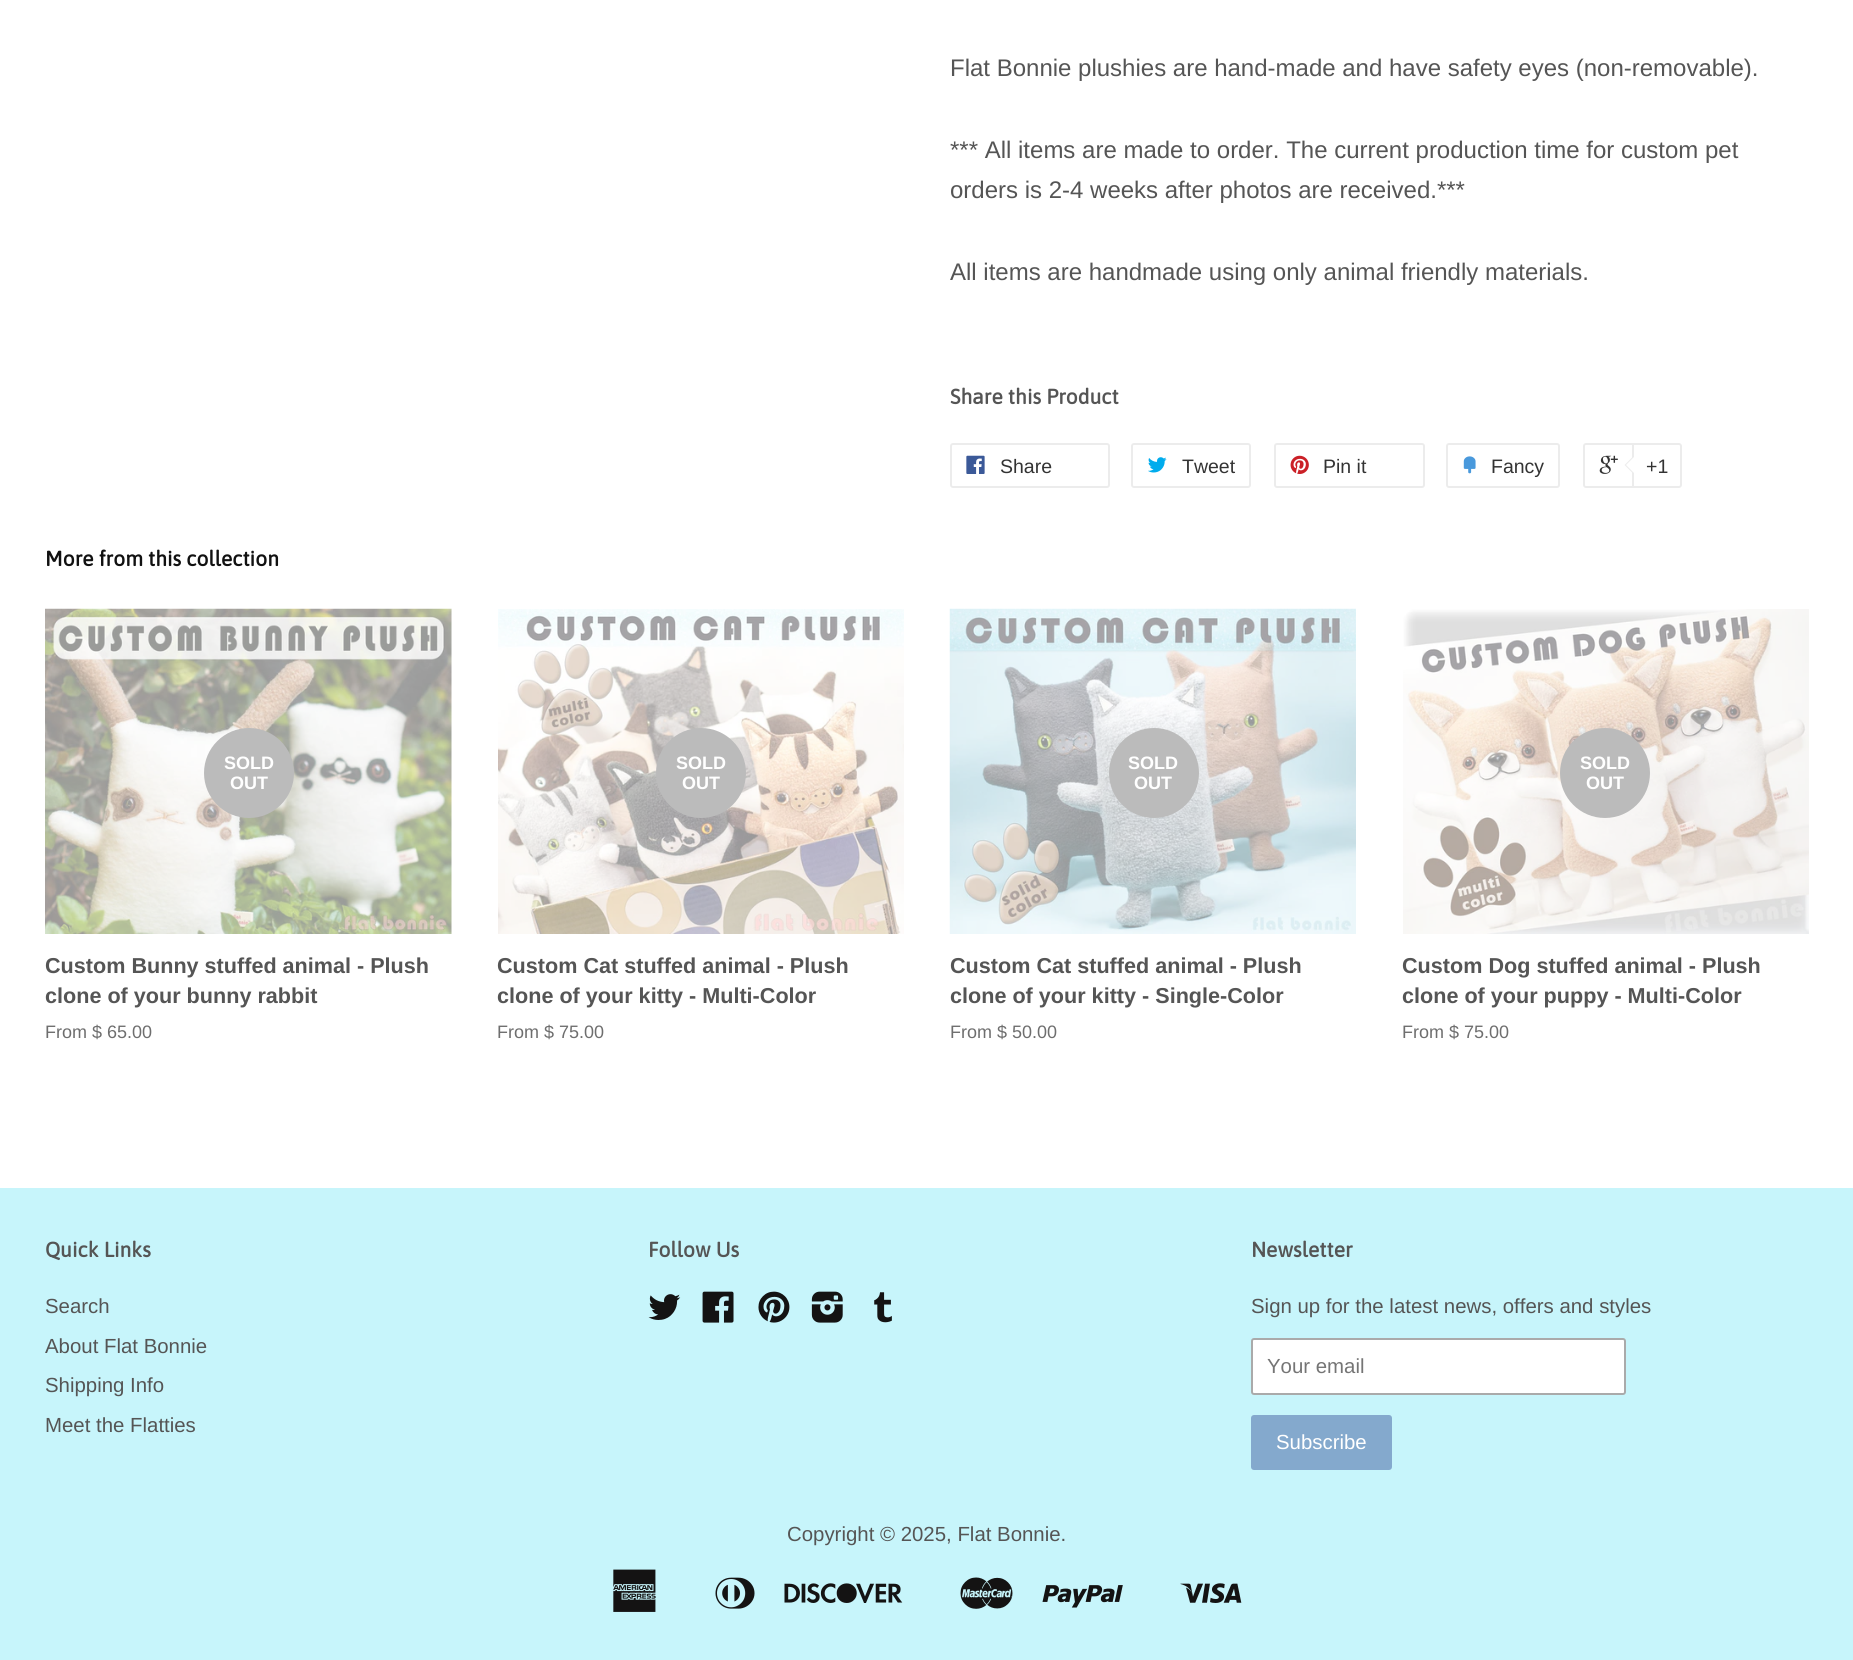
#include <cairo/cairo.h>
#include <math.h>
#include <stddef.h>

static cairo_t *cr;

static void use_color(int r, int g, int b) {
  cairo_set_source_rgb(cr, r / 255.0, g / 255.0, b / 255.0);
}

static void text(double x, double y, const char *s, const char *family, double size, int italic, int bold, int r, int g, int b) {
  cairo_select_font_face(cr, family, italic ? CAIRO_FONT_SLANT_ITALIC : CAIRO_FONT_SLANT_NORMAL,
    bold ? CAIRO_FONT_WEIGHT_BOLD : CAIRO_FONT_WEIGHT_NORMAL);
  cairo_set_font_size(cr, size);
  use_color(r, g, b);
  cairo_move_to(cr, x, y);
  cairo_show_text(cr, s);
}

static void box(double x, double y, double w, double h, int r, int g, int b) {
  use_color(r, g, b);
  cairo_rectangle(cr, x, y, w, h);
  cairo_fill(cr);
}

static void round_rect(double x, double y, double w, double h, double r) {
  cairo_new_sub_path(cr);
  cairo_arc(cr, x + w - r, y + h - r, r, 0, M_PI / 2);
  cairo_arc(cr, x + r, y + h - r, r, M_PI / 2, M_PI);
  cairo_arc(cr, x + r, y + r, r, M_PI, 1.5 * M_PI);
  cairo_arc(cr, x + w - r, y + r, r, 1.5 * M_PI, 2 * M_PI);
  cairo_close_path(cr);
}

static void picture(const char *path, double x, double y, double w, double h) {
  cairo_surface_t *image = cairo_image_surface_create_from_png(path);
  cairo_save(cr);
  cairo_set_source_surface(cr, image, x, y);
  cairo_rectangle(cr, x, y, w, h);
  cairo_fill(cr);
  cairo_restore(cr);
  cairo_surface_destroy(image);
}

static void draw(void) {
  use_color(255, 255, 255);
  cairo_paint(cr);
  round_rect(951, 444, 158, 43, 2);
  use_color(236, 236, 236);
  cairo_stroke(cr);
  picture("img_01.png", 966, 455, 19, 19);
  round_rect(1132, 444, 118, 43, 2);
  cairo_stroke(cr);
  picture("img_02.png", 1148, 457, 19, 16);
  round_rect(1275, 444, 149, 43, 2);
  cairo_stroke(cr);
  picture("img_03.png", 1290, 455, 19, 19);
  round_rect(1447, 444, 112, 43, 2);
  cairo_stroke(cr);
  picture("img_04.png", 1463, 456, 13, 18);
  round_rect(1584, 444, 95, 43, 2);
  cairo_stroke(cr);
  picture("img_05.png", 1599, 455, 19, 19);
  use_color(255, 255, 255);
  cairo_new_path(cr);
  cairo_move_to(cr, 1633, 444);
  cairo_line_to(cr, 1679, 444);
  cairo_curve_to(cr, 1680, 444, 1681, 445, 1681, 446);
  cairo_line_to(cr, 1681, 485);
  cairo_curve_to(cr, 1681, 486, 1680, 487, 1679, 487);
  cairo_line_to(cr, 1633, 487);
  cairo_close_path(cr);
  cairo_fill_preserve(cr);
  use_color(236, 236, 236);
  cairo_stroke(cr);
  cairo_new_path(cr);
  cairo_move_to(cr, 1633.5, 456);
  cairo_line_to(cr, 1633.5, 474);
  cairo_line_to(cr, 1624.5, 465);
  cairo_close_path(cr);
  cairo_fill(cr);
  use_color(255, 255, 255);
  cairo_new_path(cr);
  cairo_move_to(cr, 1635, 456);
  cairo_line_to(cr, 1635, 474);
  cairo_line_to(cr, 1626, 465);
  cairo_close_path(cr);
  cairo_fill(cr);
  picture("img_06.png", 45, 608, 407, 326);
  use_color(187, 187, 187);
  cairo_arc(cr, 249, 773, 45, 0, 2 * M_PI);
  cairo_fill(cr);
  picture("img_07.png", 498, 609, 406, 325);
  cairo_arc(cr, 701, 773, 45, 0, 2 * M_PI);
  cairo_fill(cr);
  picture("img_08.png", 949, 608, 407, 326);
  cairo_arc(cr, 1154, 773, 45, 0, 2 * M_PI);
  cairo_fill(cr);
  picture("img_09.png", 1403, 609, 406, 325);
  cairo_arc(cr, 1605, 773, 45, 0, 2 * M_PI);
  cairo_fill(cr);
  box(0, 1188, 1853, 472, 199, 245, 251);
  picture("img_10.png", 648, 1294, 33, 26);
  picture("img_11.png", 702, 1291, 32, 32);
  picture("img_12.png", 758, 1291, 32, 32);
  picture("img_13.png", 811, 1291, 32, 32);
  picture("img_14.png", 874, 1292, 18, 31);
  use_color(255, 255, 255);
  round_rect(1252, 1339, 373, 55, 2);
  cairo_fill_preserve(cr);
  use_color(170, 170, 170);
  cairo_stroke(cr);
  use_color(132, 169, 205);
  round_rect(1251, 1415, 141, 55, 3);
  cairo_fill(cr);
  picture("img_15.png", 613, 1569, 43, 43);
  picture("img_16.png", 715, 1577, 40, 32);
  picture("img_17.png", 784, 1583, 119, 20);
  picture("img_18.png", 960, 1577, 53, 32);
  picture("img_19.png", 1042, 1585, 81, 23);
  picture("img_20.png", 1180, 1583, 62, 20);
  text(950, 76, "Flat Bonnie plushies are hand-made and have safety eyes (non-removable).", "Liberation Sans", 24, 0, 0, 85, 85, 85);
  text(950, 158, "*** All items are made to order. The current production time for custom pet", "Liberation Sans", 24, 0, 0, 85, 85, 85);
  text(950, 198, "orders is 2-4 weeks after photos are received.***", "Liberation Sans", 24, 0, 0, 85, 85, 85);
  text(950, 280, "All items are handmade using only animal friendly materials.", "Liberation Sans", 24, 0, 0, 85, 85, 85);
  text(950, 404, "Share this Product", "Asap", 21, 0, 1, 85, 85, 85);
  text(1000, 473, "Share", "Liberation Sans", 19.5, 0, 0, 51, 51, 51);
  text(1182, 473, "Tweet", "Liberation Sans", 19.5, 0, 0, 51, 51, 51);
  text(1323, 473, "Pin it", "Liberation Sans", 19.5, 0, 0, 51, 51, 51);
  text(1491, 473, "Fancy", "Liberation Sans", 19.5, 0, 0, 51, 51, 51);
  text(1646, 473, "+1", "Liberation Sans", 19.5, 0, 0, 51, 51, 51);
  text(45, 566, "More from this collection", "Asap", 21, 0, 1, 17, 17, 17);
  text(224, 769, "SOLD", "Liberation Sans", 18, 0, 1, 255, 255, 255);
  text(230, 789, "OUT", "Liberation Sans", 18, 0, 1, 255, 255, 255);
  text(45, 973, "Custom Bunny stuffed animal - Plush", "Liberation Sans", 21.6, 0, 1, 85, 85, 85);
  text(45, 1003, "clone of your bunny rabbit", "Liberation Sans", 21.6, 0, 1, 85, 85, 85);
  text(45, 1038, "From $ 65.00", "Liberation Sans", 18, 0, 0, 110, 110, 110);
  text(676, 769, "SOLD", "Liberation Sans", 18, 0, 1, 255, 255, 255);
  text(682, 789, "OUT", "Liberation Sans", 18, 0, 1, 255, 255, 255);
  text(497, 973, "Custom Cat stuffed animal - Plush", "Liberation Sans", 21.6, 0, 1, 85, 85, 85);
  text(497, 1003, "clone of your kitty - Multi-Color", "Liberation Sans", 21.6, 0, 1, 85, 85, 85);
  text(497, 1038, "From $ 75.00", "Liberation Sans", 18, 0, 0, 110, 110, 110);
  text(1128, 769, "SOLD", "Liberation Sans", 18, 0, 1, 255, 255, 255);
  text(1134, 789, "OUT", "Liberation Sans", 18, 0, 1, 255, 255, 255);
  text(950, 973, "Custom Cat stuffed animal - Plush", "Liberation Sans", 21.6, 0, 1, 85, 85, 85);
  text(950, 1003, "clone of your kitty - Single-Color", "Liberation Sans", 21.6, 0, 1, 85, 85, 85);
  text(950, 1038, "From $ 50.00", "Liberation Sans", 18, 0, 0, 110, 110, 110);
  text(1580, 769, "SOLD", "Liberation Sans", 18, 0, 1, 255, 255, 255);
  text(1586, 789, "OUT", "Liberation Sans", 18, 0, 1, 255, 255, 255);
  text(1402, 973, "Custom Dog stuffed animal - Plush", "Liberation Sans", 21.6, 0, 1, 85, 85, 85);
  text(1402, 1003, "clone of your puppy - Multi-Color", "Liberation Sans", 21.6, 0, 1, 85, 85, 85);
  text(1402, 1038, "From $ 75.00", "Liberation Sans", 18, 0, 0, 110, 110, 110);
  text(45, 1257, "Quick Links", "Asap", 21, 0, 1, 85, 85, 85);
  text(45, 1313, "Search", "Liberation Sans", 20.4, 0, 0, 85, 85, 85);
  text(45, 1353, "About Flat Bonnie", "Liberation Sans", 20.4, 0, 0, 85, 85, 85);
  text(45, 1392, "Shipping Info", "Liberation Sans", 20.4, 0, 0, 85, 85, 85);
  text(45, 1432, "Meet the Flatties", "Liberation Sans", 20.4, 0, 0, 85, 85, 85);
  text(648, 1257, "Follow Us", "Asap", 21, 0, 1, 85, 85, 85);
  text(1251, 1257, "Newsletter", "Asap", 21, 0, 1, 85, 85, 85);
  text(1251, 1313, "Sign up for the latest news, offers and styles", "Liberation Sans", 20.4, 0, 0, 85, 85, 85);
  text(1267, 1373, "Your email", "Liberation Sans", 20.4, 0, 0, 117, 117, 117);
  text(1276, 1449, "Subscribe", "Liberation Sans", 20.4, 0, 0, 255, 255, 255);
  text(787, 1541, "Copyright © 2025, Flat Bonnie.", "Liberation Sans", 20.4, 0, 0, 85, 85, 85);
}

int main(void) {
  cairo_surface_t *surface = cairo_image_surface_create(CAIRO_FORMAT_RGB24, 1853, 1660);
  cr = cairo_create(surface);
  cairo_font_options_t *options = cairo_font_options_create();
  cairo_font_options_set_hint_metrics(options, CAIRO_HINT_METRICS_OFF);
  cairo_font_options_set_hint_style(options, CAIRO_HINT_STYLE_NONE);
  cairo_set_font_options(cr, options);
  cairo_set_miter_limit(cr, 4);
  draw();
  cairo_surface_write_to_png(surface, "out.png");
  cairo_font_options_destroy(options);
  cairo_destroy(cr);
  cairo_surface_destroy(surface);
  return 0;
}
